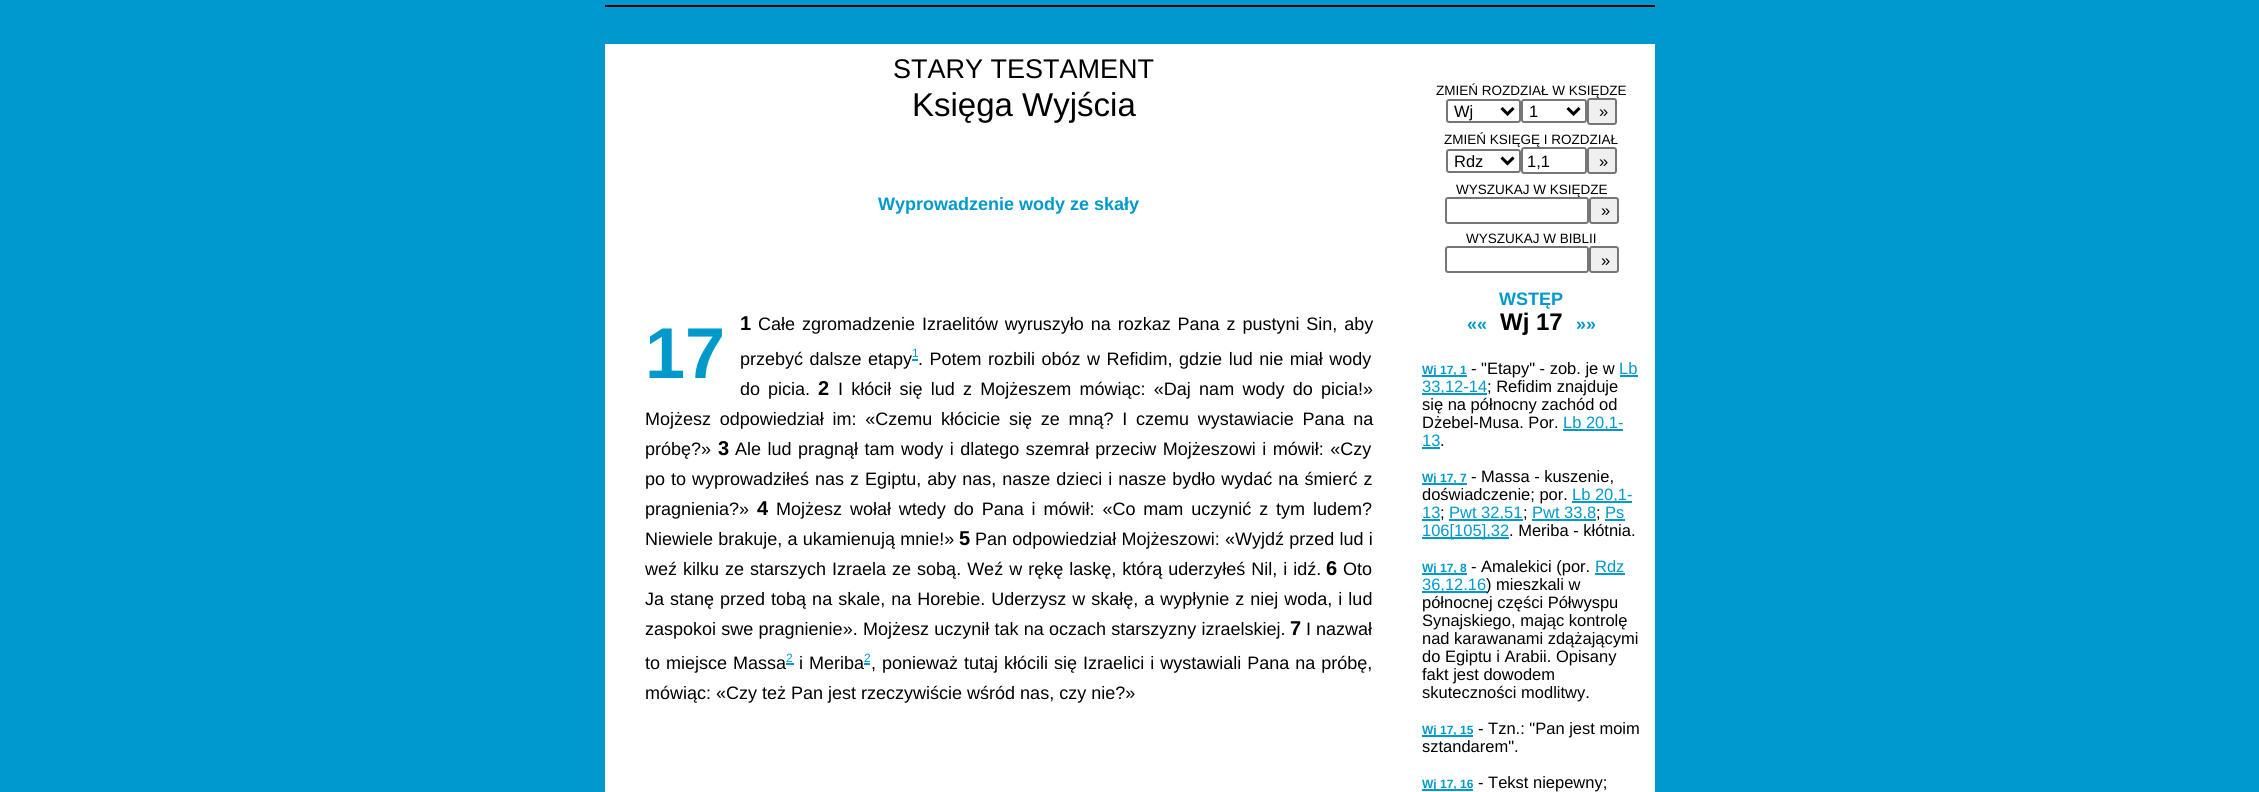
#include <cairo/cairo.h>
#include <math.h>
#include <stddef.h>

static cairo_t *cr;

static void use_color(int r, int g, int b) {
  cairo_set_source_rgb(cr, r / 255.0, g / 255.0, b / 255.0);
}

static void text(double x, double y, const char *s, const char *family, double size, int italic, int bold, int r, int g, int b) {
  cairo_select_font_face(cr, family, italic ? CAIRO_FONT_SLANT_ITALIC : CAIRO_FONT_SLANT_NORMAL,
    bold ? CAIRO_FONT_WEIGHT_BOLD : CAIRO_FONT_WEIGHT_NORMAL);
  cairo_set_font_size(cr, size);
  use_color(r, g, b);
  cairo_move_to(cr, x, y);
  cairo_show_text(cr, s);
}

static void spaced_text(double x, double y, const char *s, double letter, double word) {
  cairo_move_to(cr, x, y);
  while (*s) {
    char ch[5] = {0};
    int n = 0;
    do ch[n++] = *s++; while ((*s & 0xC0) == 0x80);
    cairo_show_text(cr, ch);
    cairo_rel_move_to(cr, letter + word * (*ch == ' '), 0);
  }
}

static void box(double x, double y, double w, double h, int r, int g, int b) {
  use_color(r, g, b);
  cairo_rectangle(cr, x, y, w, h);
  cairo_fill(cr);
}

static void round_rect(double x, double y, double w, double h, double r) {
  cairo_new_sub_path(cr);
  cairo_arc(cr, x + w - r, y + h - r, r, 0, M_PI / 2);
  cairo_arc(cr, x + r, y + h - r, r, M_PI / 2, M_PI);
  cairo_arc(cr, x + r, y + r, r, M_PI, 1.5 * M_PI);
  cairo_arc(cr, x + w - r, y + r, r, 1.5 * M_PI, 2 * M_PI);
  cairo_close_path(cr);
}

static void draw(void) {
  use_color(0, 153, 207);
  cairo_paint(cr);
  box(605, 5, 1050, 2, 0, 0, 0);
  box(605, 44, 1050, 748, 255, 255, 255);
  box(912, 359, 6, 2, 0, 153, 204);
  box(864, 663, 6, 2, 0, 153, 204);
  round_rect(1447, 100, 73, 22, 2);
  use_color(118, 118, 118);
  cairo_stroke(cr);
  cairo_new_path(cr);
  cairo_move_to(cr, 1501.5, 108);
  cairo_line_to(cr, 1507.5, 114);
  cairo_line_to(cr, 1513.5, 108);
  use_color(0, 0, 0);
  cairo_set_line_width(cr, 3);
  cairo_stroke(cr);
  round_rect(1522, 100, 64, 22, 2);
  use_color(118, 118, 118);
  cairo_set_line_width(cr, 2);
  cairo_stroke(cr);
  cairo_new_path(cr);
  cairo_move_to(cr, 1567.5, 108);
  cairo_line_to(cr, 1573.5, 114);
  cairo_line_to(cr, 1579.5, 108);
  use_color(0, 0, 0);
  cairo_set_line_width(cr, 3);
  cairo_stroke(cr);
  use_color(239, 239, 239);
  round_rect(1588, 99, 28, 25, 2);
  cairo_fill_preserve(cr);
  use_color(118, 118, 118);
  cairo_set_line_width(cr, 2);
  cairo_stroke(cr);
  round_rect(1447, 150, 73, 22, 2);
  cairo_stroke(cr);
  cairo_new_path(cr);
  cairo_move_to(cr, 1501.5, 157.5);
  cairo_line_to(cr, 1507.5, 163.5);
  cairo_line_to(cr, 1513.5, 157.5);
  use_color(0, 0, 0);
  cairo_set_line_width(cr, 3);
  cairo_stroke(cr);
  round_rect(1522, 148, 64, 25, 2);
  use_color(118, 118, 118);
  cairo_set_line_width(cr, 2);
  cairo_stroke(cr);
  use_color(239, 239, 239);
  round_rect(1588, 148, 28, 25, 2);
  cairo_fill_preserve(cr);
  use_color(118, 118, 118);
  cairo_stroke(cr);
  round_rect(1446, 198, 142, 25, 2);
  cairo_stroke(cr);
  use_color(239, 239, 239);
  round_rect(1590, 198, 28, 25, 2);
  cairo_fill_preserve(cr);
  use_color(118, 118, 118);
  cairo_stroke(cr);
  round_rect(1446, 247, 142, 25, 2);
  cairo_stroke(cr);
  use_color(239, 239, 239);
  round_rect(1590, 247, 28, 25, 2);
  cairo_fill_preserve(cr);
  use_color(118, 118, 118);
  cairo_stroke(cr);
  box(1422, 375, 45, 2, 0, 153, 204);
  box(1620, 375, 18, 2, 0, 153, 204);
  box(1422, 393, 65, 2, 0, 153, 204);
  box(1563, 429, 60, 2, 0, 153, 204);
  box(1422, 447, 18, 2, 0, 153, 204);
  box(1422, 483, 45, 2, 0, 153, 204);
  box(1572, 501, 60, 2, 0, 153, 204);
  box(1422, 519, 18, 2, 0, 153, 204);
  box(1449, 519, 74, 2, 0, 153, 204);
  box(1532, 519, 64, 2, 0, 153, 204);
  box(1605, 519, 20, 2, 0, 153, 204);
  box(1422, 537, 87, 2, 0, 153, 204);
  box(1422, 573, 45, 2, 0, 153, 204);
  box(1595, 573, 30, 2, 0, 153, 204);
  box(1422, 591, 65, 2, 0, 153, 204);
  box(1422, 735, 51, 2, 0, 153, 204);
  box(1422, 789, 51, 2, 0, 153, 204);
  text(893, 78, "STARY TESTAMENT", "Liberation Sans", 27, 0, 0, 0, 0, 0);
  text(912, 116, "Księga Wyjścia", "Liberation Sans", 33, 0, 0, 0, 0, 0);
  text(878, 210, "Wyprowadzenie wody ze skały", "Liberation Sans", 18, 0, 1, 0, 153, 204);
  text(740, 330, "1", "Liberation Sans", 20, 0, 1, 0, 0, 0);
  cairo_select_font_face(cr, "Liberation Sans", CAIRO_FONT_SLANT_NORMAL, CAIRO_FONT_WEIGHT_NORMAL);
  cairo_set_font_size(cr, 18);
  spaced_text(758, 330, "Całe zgromadzenie Izraelitów wyruszyło na rozkaz Pana z pustyni Sin, aby", 0, 1.9);
  text(645, 378, "17", "Liberation Sans", 72, 0, 1, 0, 153, 204);
  cairo_select_font_face(cr, "Liberation Sans", CAIRO_FONT_SLANT_NORMAL, CAIRO_FONT_WEIGHT_NORMAL);
  cairo_set_font_size(cr, 18);
  use_color(0, 0, 0);
  spaced_text(740, 365, "przebyć dalsze etapy", 0, 1.5);
  text(912, 357, "1", "Liberation Sans", 12, 0, 0, 0, 153, 204);
  cairo_set_font_size(cr, 18);
  use_color(0, 0, 0);
  spaced_text(918, 365, ". Potem rozbili obóz w Refidim, gdzie lud nie miał wody", 0, 1.5);
  spaced_text(740, 395, "do picia.", 0, 3);
  text(818, 395, "2", "Liberation Sans", 20, 0, 1, 0, 0, 0);
  cairo_select_font_face(cr, "Liberation Sans", CAIRO_FONT_SLANT_NORMAL, CAIRO_FONT_WEIGHT_NORMAL);
  cairo_set_font_size(cr, 18);
  spaced_text(838, 395, "I kłócił się lud z Mojżeszem mówiąc: «Daj nam wody do picia!»", 0, 3.25);
  spaced_text(645, 425, "Mojżesz odpowiedział im: «Czemu kłócicie się ze mną? I czemu wystawiacie Pana na", 0, 3.75);
  text(645, 455, "próbę?»", "Liberation Sans", 18, 0, 0, 0, 0, 0);
  text(718, 455, "3", "Liberation Sans", 20, 0, 1, 0, 0, 0);
  cairo_select_font_face(cr, "Liberation Sans", CAIRO_FONT_SLANT_NORMAL, CAIRO_FONT_WEIGHT_NORMAL);
  cairo_set_font_size(cr, 18);
  spaced_text(735, 455, "Ale lud pragnął tam wody i dlatego szemrał przeciw Mojżeszowi i mówił: «Czy", 0, 1.5);
  spaced_text(645, 485, "po to wyprowadziłeś nas z Egiptu, aby nas, nasze dzieci i nasze bydło wydać na śmierć z", 0, 1);
  text(645, 515, "pragnienia?»", "Liberation Sans", 18, 0, 0, 0, 0, 0);
  text(757, 515, "4", "Liberation Sans", 20, 0, 1, 0, 0, 0);
  cairo_select_font_face(cr, "Liberation Sans", CAIRO_FONT_SLANT_NORMAL, CAIRO_FONT_WEIGHT_NORMAL);
  cairo_set_font_size(cr, 18);
  spaced_text(776, 515, "Mojżesz wołał wtedy do Pana i mówił: «Co mam uczynić z tym ludem?", 0, 2.9);
  spaced_text(645, 545, "Niewiele brakuje, a ukamienują mnie!»", 0, 0.25);
  text(959, 545, "5", "Liberation Sans", 20, 0, 1, 0, 0, 0);
  cairo_select_font_face(cr, "Liberation Sans", CAIRO_FONT_SLANT_NORMAL, CAIRO_FONT_WEIGHT_NORMAL);
  cairo_set_font_size(cr, 18);
  spaced_text(975, 545, "Pan odpowiedział Mojżeszowi: «Wyjdź przed lud i", 0, 0.25);
  spaced_text(645, 575, "weź kilku ze starszych Izraela ze sobą. Weź w rękę laskę, którą uderzyłeś Nil, i idź.", 0, 1);
  text(1326, 575, "6", "Liberation Sans", 20, 0, 1, 0, 0, 0);
  text(1343, 575, "Oto", "Liberation Sans", 18, 0, 0, 0, 0, 0);
  spaced_text(645, 605, "Ja stanę przed tobą na skale, na Horebie. Uderzysz w skałę, a wypłynie z niej woda, i lud", 0, 1);
  spaced_text(645, 635, "zaspokoi swe pragnienie». Mojżesz uczynił tak na oczach starszyzny izraelskiej.", 0, 0.25);
  text(1290, 635, "7", "Liberation Sans", 20, 0, 1, 0, 0, 0);
  text(1306, 635, "I nazwał", "Liberation Sans", 18, 0, 0, 0, 0, 0);
  spaced_text(645, 669, "to miejsce Massa", 0, 1);
  text(786, 662, "2", "Liberation Sans", 12, 0, 0, 0, 153, 204);
  box(786, 663, 8, 2, 0, 153, 204);
  cairo_set_font_size(cr, 18);
  use_color(0, 0, 0);
  spaced_text(799, 669, "i Meriba", 0, 1);
  text(864, 662, "2", "Liberation Sans", 12, 0, 0, 0, 153, 204);
  cairo_set_font_size(cr, 18);
  use_color(0, 0, 0);
  spaced_text(871, 669, ", ponieważ tutaj kłócili się Izraelici i wystawiali Pana na próbę,", 0, 1);
  text(645, 699, "mówiąc: «Czy też Pan jest rzeczywiście wśród nas, czy nie?»", "Liberation Sans", 18, 0, 0, 0, 0, 0);
  text(1436, 95, "ZMIEŃ ROZDZIAŁ W KSIĘDZE", "Liberation Sans", 13.5, 0, 0, 0, 0, 0);
  text(1454, 117, "Wj", "Liberation Sans", 16.5, 0, 0, 0, 0, 0);
  text(1529, 117, "1", "Liberation Sans", 16.5, 0, 0, 0, 0, 0);
  text(1599, 117, "»", "Liberation Sans", 16.5, 0, 0, 0, 0, 0);
  text(1444, 144, "ZMIEŃ KSIĘGĘ I ROZDZIAŁ", "Liberation Sans", 13.5, 0, 0, 0, 0, 0);
  text(1454, 167, "Rdz", "Liberation Sans", 16.5, 0, 0, 0, 0, 0);
  text(1527, 167, "1,1", "Liberation Sans", 16.5, 0, 0, 0, 0, 0);
  text(1599, 167, "»", "Liberation Sans", 16.5, 0, 0, 0, 0, 0);
  text(1456, 194, "WYSZUKAJ W KSIĘDZE", "Liberation Sans", 13.5, 0, 0, 0, 0, 0);
  text(1601, 216, "»", "Liberation Sans", 16.5, 0, 0, 0, 0, 0);
  text(1466, 243, "WYSZUKAJ W BIBLII", "Liberation Sans", 13.5, 0, 0, 0, 0, 0);
  text(1601, 266, "»", "Liberation Sans", 16.5, 0, 0, 0, 0, 0);
  text(1499, 305, "WSTĘP", "Liberation Sans", 18, 0, 1, 0, 153, 204);
  text(1467, 330, "««", "Liberation Sans", 18, 0, 1, 0, 153, 204);
  text(1500, 330, "Wj 17", "Liberation Sans", 24, 0, 1, 0, 0, 0);
  text(1576, 330, "»»", "Liberation Sans", 18, 0, 1, 0, 153, 204);
  text(1422, 374, "Wj 17, 1", "Liberation Sans", 12, 0, 1, 0, 153, 204);
  text(1471, 374, "- \"Etapy\" - zob. je w", "Liberation Sans", 16.5, 0, 0, 0, 0, 0);
  text(1619, 374, "Lb", "Liberation Sans", 16.5, 0, 0, 0, 153, 204);
  text(1422, 392, "33,12-14", "Liberation Sans", 16.5, 0, 0, 0, 153, 204);
  text(1487, 392, "; Refidim znajduje", "Liberation Sans", 16.5, 0, 0, 0, 0, 0);
  text(1422, 410, "się na północny zachód od", "Liberation Sans", 16.5, 0, 0, 0, 0, 0);
  text(1422, 428, "Dżebel-Musa. Por.", "Liberation Sans", 16.5, 0, 0, 0, 0, 0);
  text(1563, 428, "Lb 20,1-", "Liberation Sans", 16.5, 0, 0, 0, 153, 204);
  text(1422, 446, "13", "Liberation Sans", 16.5, 0, 0, 0, 153, 204);
  text(1440, 446, ".", "Liberation Sans", 16.5, 0, 0, 0, 0, 0);
  text(1422, 482, "Wj 17, 7", "Liberation Sans", 12, 0, 1, 0, 153, 204);
  text(1471, 482, "- Massa - kuszenie,", "Liberation Sans", 16.5, 0, 0, 0, 0, 0);
  text(1422, 500, "doświadczenie; por.", "Liberation Sans", 16.5, 0, 0, 0, 0, 0);
  text(1572, 500, "Lb 20,1-", "Liberation Sans", 16.5, 0, 0, 0, 153, 204);
  text(1422, 518, "13", "Liberation Sans", 16.5, 0, 0, 0, 153, 204);
  text(1440, 518, ";", "Liberation Sans", 16.5, 0, 0, 0, 0, 0);
  text(1449, 518, "Pwt 32,51", "Liberation Sans", 16.5, 0, 0, 0, 153, 204);
  text(1523, 518, ";", "Liberation Sans", 16.5, 0, 0, 0, 0, 0);
  text(1532, 518, "Pwt 33,8", "Liberation Sans", 16.5, 0, 0, 0, 153, 204);
  text(1596, 518, ";", "Liberation Sans", 16.5, 0, 0, 0, 0, 0);
  text(1605, 518, "Ps", "Liberation Sans", 16.5, 0, 0, 0, 153, 204);
  text(1422, 536, "106[105],32", "Liberation Sans", 16.5, 0, 0, 0, 153, 204);
  text(1509, 536, ". Meriba - kłótnia.", "Liberation Sans", 16.5, 0, 0, 0, 0, 0);
  text(1422, 572, "Wj 17, 8", "Liberation Sans", 12, 0, 1, 0, 153, 204);
  text(1471, 572, "- Amalekici (por.", "Liberation Sans", 16.5, 0, 0, 0, 0, 0);
  text(1595, 572, "Rdz", "Liberation Sans", 16.5, 0, 0, 0, 153, 204);
  text(1422, 590, "36,12.16", "Liberation Sans", 16.5, 0, 0, 0, 153, 204);
  text(1486, 590, ") mieszkali w", "Liberation Sans", 16.5, 0, 0, 0, 0, 0);
  text(1422, 608, "północnej części Półwyspu", "Liberation Sans", 16.5, 0, 0, 0, 0, 0);
  text(1422, 626, "Synajskiego, mając kontrolę", "Liberation Sans", 16.5, 0, 0, 0, 0, 0);
  text(1422, 644, "nad karawanami zdążającymi", "Liberation Sans", 16.5, 0, 0, 0, 0, 0);
  text(1422, 662, "do Egiptu i Arabii. Opisany", "Liberation Sans", 16.5, 0, 0, 0, 0, 0);
  text(1422, 680, "fakt jest dowodem", "Liberation Sans", 16.5, 0, 0, 0, 0, 0);
  text(1422, 698, "skuteczności modlitwy.", "Liberation Sans", 16.5, 0, 0, 0, 0, 0);
  text(1422, 734, "Wj 17, 15", "Liberation Sans", 12, 0, 1, 0, 153, 204);
  text(1478, 734, "- Tzn.: \"Pan jest moim", "Liberation Sans", 16.5, 0, 0, 0, 0, 0);
  text(1422, 752, "sztandarem\".", "Liberation Sans", 16.5, 0, 0, 0, 0, 0);
  text(1422, 788, "Wj 17, 16", "Liberation Sans", 12, 0, 1, 0, 153, 204);
  text(1478, 788, "- Tekst niepewny;", "Liberation Sans", 16.5, 0, 0, 0, 0, 0);
}

int main(void) {
  cairo_surface_t *surface = cairo_image_surface_create(CAIRO_FORMAT_RGB24, 2259, 792);
  cr = cairo_create(surface);
  cairo_font_options_t *options = cairo_font_options_create();
  cairo_font_options_set_hint_metrics(options, CAIRO_HINT_METRICS_OFF);
  cairo_font_options_set_hint_style(options, CAIRO_HINT_STYLE_NONE);
  cairo_set_font_options(cr, options);
  cairo_set_miter_limit(cr, 4);
  draw();
  cairo_surface_write_to_png(surface, "out.png");
  cairo_font_options_destroy(options);
  cairo_destroy(cr);
  cairo_surface_destroy(surface);
  return 0;
}
